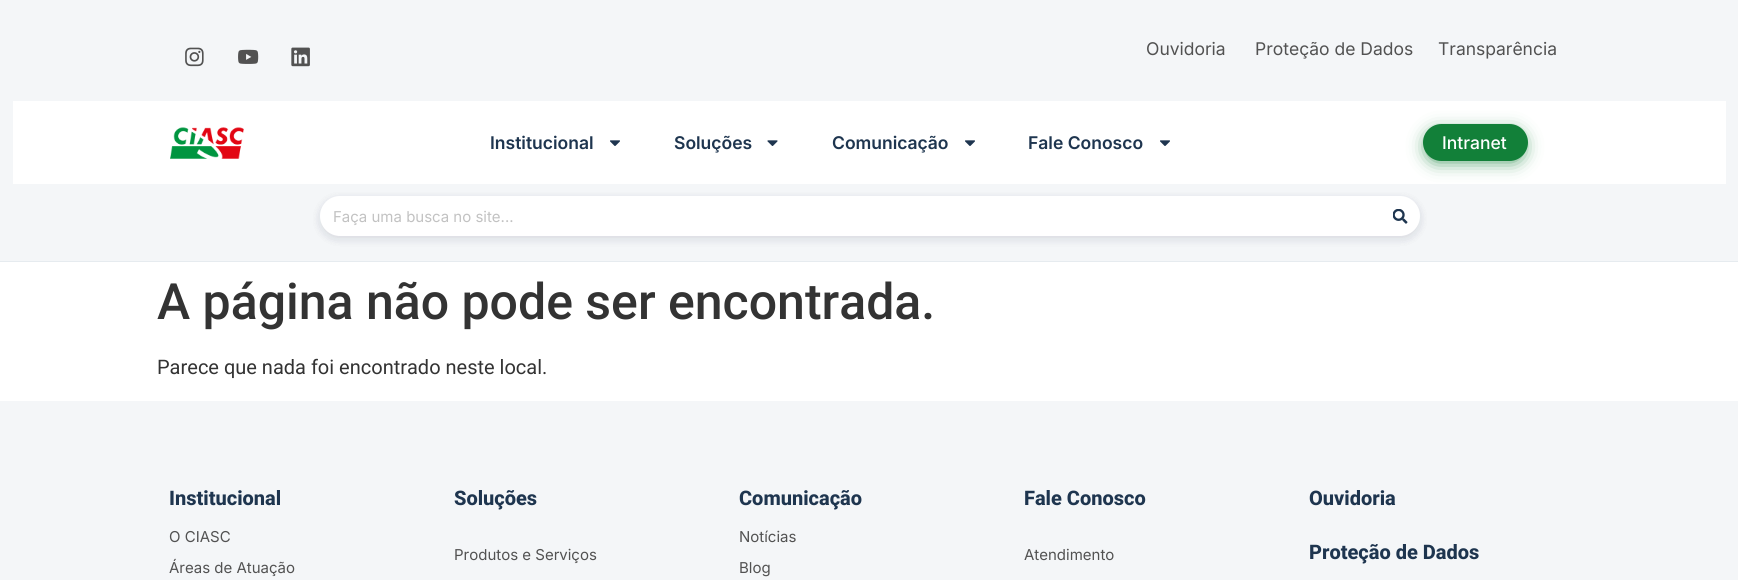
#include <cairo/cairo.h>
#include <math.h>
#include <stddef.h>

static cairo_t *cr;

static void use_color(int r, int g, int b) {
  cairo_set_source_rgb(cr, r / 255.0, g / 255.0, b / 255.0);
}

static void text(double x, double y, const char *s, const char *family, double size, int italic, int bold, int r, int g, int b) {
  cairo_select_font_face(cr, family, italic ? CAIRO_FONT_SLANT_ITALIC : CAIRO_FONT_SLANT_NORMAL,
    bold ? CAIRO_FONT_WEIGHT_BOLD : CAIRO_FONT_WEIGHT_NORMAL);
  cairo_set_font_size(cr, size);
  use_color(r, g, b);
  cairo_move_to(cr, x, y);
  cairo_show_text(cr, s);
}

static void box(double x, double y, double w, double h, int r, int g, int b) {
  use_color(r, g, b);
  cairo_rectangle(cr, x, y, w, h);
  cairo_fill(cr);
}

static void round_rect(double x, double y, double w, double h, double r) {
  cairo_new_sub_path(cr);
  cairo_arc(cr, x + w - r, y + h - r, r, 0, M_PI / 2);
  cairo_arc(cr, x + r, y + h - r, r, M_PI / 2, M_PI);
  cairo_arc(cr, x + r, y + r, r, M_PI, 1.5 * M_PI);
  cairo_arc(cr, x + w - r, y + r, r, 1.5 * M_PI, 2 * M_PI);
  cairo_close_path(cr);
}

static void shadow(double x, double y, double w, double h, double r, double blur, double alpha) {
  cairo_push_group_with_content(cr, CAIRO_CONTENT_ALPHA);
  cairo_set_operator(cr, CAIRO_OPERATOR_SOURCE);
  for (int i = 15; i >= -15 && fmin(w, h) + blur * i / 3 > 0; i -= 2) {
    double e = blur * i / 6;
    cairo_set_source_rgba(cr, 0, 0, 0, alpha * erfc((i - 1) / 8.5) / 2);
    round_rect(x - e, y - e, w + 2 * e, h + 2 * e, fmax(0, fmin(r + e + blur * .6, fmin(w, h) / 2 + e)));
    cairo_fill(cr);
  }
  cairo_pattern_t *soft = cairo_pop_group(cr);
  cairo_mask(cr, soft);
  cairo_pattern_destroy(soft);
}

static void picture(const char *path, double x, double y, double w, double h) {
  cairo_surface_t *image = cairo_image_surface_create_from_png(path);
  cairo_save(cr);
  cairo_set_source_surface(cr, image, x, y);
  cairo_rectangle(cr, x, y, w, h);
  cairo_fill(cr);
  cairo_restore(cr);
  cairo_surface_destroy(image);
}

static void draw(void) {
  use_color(255, 255, 255);
  cairo_paint(cr);
  box(0, 0, 1738, 261, 244, 246, 248);
  box(0, 261, 1738, 1, 230, 235, 239);
  picture("img_01.png", 185, 47, 19, 20);
  picture("img_02.png", 238, 49, 21, 15);
  picture("img_03.png", 291, 47, 19, 20);
  box(13, 101, 1713, 83, 255, 255, 255);
  picture("img_04.png", 170, 127, 74, 32);
  picture("img_05.png", 610, 140, 10, 6);
  picture("img_06.png", 767, 140, 11, 6);
  picture("img_05.png", 965, 140, 10, 6);
  picture("img_05.png", 1160, 140, 10, 6);
  use_color(18, 128, 57);
  shadow(1429, 134, 92, 25, 12.5, 9.5, 1);
  use_color(18, 128, 57);
  round_rect(1423, 124, 105, 37, 18.5);
  cairo_fill(cr);
  use_color(15, 19, 56);
  shadow(320, 199, 1100, 40, 20, 5, 0.07);
  shadow(320, 199, 1100, 40, 20, 5, 0.07);
  use_color(255, 255, 255);
  round_rect(320, 196, 1100, 40, 20);
  cairo_fill(cr);
  picture("img_07.png", 1393, 209, 15, 15);
  box(0, 401, 1738, 179, 244, 246, 248);
  text(1146, 55, "Ouvidoria", "Inter", 17.5, 0, 0, 82, 82, 82);
  text(1255, 55, "Proteção de Dados", "Inter", 17.5, 0, 0, 82, 82, 82);
  text(1438, 55, "Transparência", "Inter", 17.5, 0, 0, 82, 82, 82);
  text(490, 149, "Institucional", "Inter SemiBold", 17.5, 0, 0, 30, 53, 79);
  text(674, 149, "Soluções", "Inter SemiBold", 17.5, 0, 0, 30, 53, 79);
  text(832, 149, "Comunicação", "Inter SemiBold", 17.5, 0, 0, 30, 53, 79);
  text(1028, 149, "Fale Conosco", "Inter SemiBold", 17.5, 0, 0, 30, 53, 79);
  text(1442, 149, "Intranet", "Inter Medium", 17.5, 0, 0, 255, 255, 255);
  text(333, 222, "Faça uma busca no site...", "Inter", 15, 0, 0, 194, 194, 194);
  text(157, 319, "A página não pode ser encontrada.", "Roboto Medium", 50, 0, 0, 51, 51, 51);
  text(157, 374, "Parece que nada foi encontrado neste local.", "Roboto", 20, 0, 0, 51, 51, 51);
  text(169, 505, "Institucional", "Roboto ExtraBold", 20, 0, 0, 30, 53, 79);
  text(169, 542, "O CIASC", "Inter", 15, 0, 0, 82, 82, 82);
  text(169, 573, "Áreas de Atuação", "Inter", 15, 0, 0, 82, 82, 82);
  text(454, 505, "Soluções", "Roboto ExtraBold", 20, 0, 0, 30, 53, 79);
  text(454, 560, "Produtos e Serviços", "Inter", 15, 0, 0, 82, 82, 82);
  text(739, 505, "Comunicação", "Roboto ExtraBold", 20, 0, 0, 30, 53, 79);
  text(739, 542, "Notícias", "Inter", 15, 0, 0, 82, 82, 82);
  text(739, 573, "Blog", "Inter", 15, 0, 0, 82, 82, 82);
  text(1024, 505, "Fale Conosco", "Roboto ExtraBold", 20, 0, 0, 30, 53, 79);
  text(1024, 560, "Atendimento", "Inter", 15, 0, 0, 82, 82, 82);
  text(1309, 505, "Ouvidoria", "Roboto ExtraBold", 20, 0, 0, 30, 53, 79);
  text(1309, 559, "Proteção de Dados", "Roboto ExtraBold", 20, 0, 0, 30, 53, 79);
}

int main(void) {
  cairo_surface_t *surface = cairo_image_surface_create(CAIRO_FORMAT_RGB24, 1738, 580);
  cr = cairo_create(surface);
  cairo_font_options_t *options = cairo_font_options_create();
  cairo_font_options_set_hint_metrics(options, CAIRO_HINT_METRICS_OFF);
  cairo_font_options_set_hint_style(options, CAIRO_HINT_STYLE_NONE);
  cairo_set_font_options(cr, options);
  cairo_set_miter_limit(cr, 4);
  draw();
  cairo_surface_write_to_png(surface, "out.png");
  cairo_font_options_destroy(options);
  cairo_destroy(cr);
  cairo_surface_destroy(surface);
  return 0;
}
